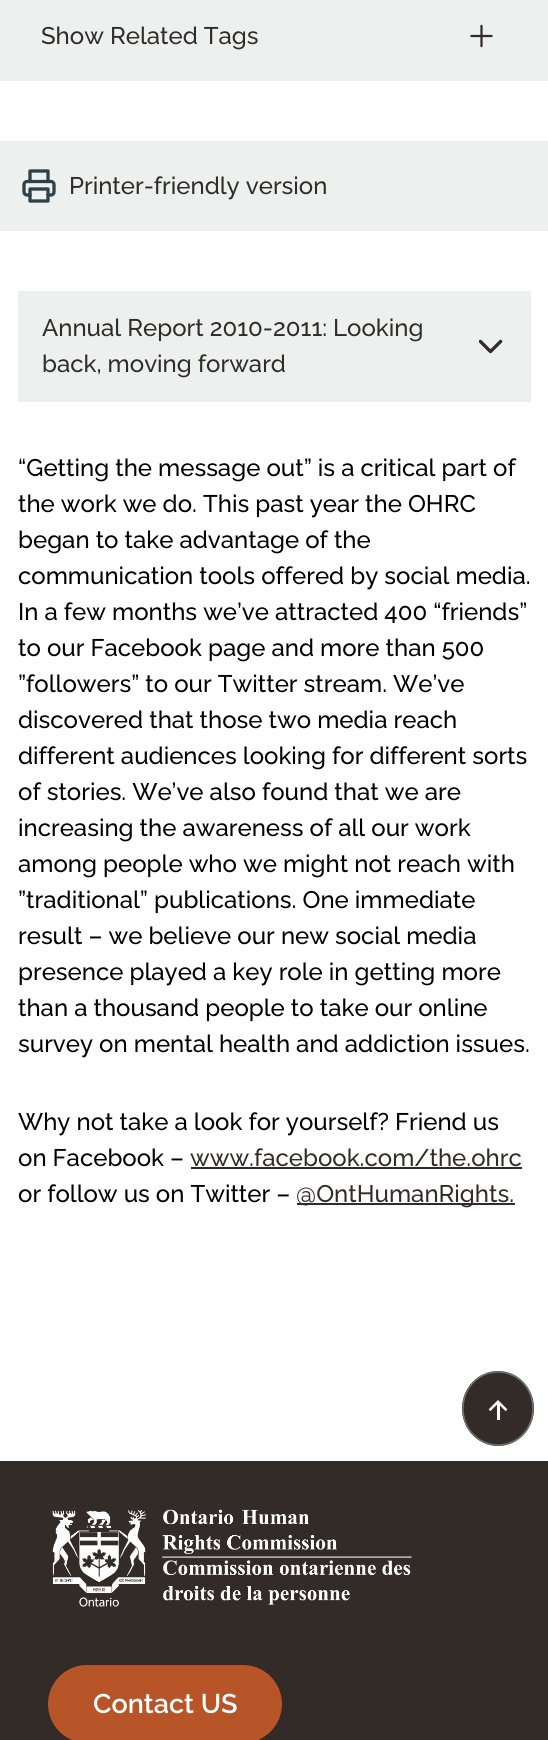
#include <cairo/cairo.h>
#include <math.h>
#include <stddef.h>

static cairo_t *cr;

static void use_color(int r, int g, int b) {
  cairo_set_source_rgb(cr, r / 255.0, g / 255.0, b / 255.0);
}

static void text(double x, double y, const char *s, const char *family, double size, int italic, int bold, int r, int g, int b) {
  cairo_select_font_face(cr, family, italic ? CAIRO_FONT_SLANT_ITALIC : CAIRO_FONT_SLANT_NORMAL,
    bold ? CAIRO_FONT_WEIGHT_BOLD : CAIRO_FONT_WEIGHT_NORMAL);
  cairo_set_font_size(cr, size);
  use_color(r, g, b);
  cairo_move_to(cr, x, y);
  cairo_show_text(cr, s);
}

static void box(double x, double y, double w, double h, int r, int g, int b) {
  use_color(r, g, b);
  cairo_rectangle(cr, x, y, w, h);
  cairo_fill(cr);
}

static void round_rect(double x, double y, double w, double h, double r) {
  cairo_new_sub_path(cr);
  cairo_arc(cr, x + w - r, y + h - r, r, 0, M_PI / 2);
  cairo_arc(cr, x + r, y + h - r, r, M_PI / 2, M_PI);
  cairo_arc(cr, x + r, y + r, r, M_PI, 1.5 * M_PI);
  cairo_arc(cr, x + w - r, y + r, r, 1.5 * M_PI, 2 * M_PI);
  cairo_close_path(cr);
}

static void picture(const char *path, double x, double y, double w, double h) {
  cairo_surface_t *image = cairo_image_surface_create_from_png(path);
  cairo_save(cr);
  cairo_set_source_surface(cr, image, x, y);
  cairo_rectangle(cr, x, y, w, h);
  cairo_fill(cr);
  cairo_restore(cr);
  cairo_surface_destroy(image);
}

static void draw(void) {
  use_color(255, 255, 255);
  cairo_paint(cr);
  cairo_rectangle(cr, 19, 292, 511, 109);
  use_color(236, 241, 240);
  cairo_stroke(cr);
  box(191, 1167, 331, 2, 50, 43, 39);
  box(297, 1203, 218, 2, 50, 43, 39);
  cairo_new_path(cr);
  cairo_move_to(cr, 498, 1371);
  cairo_curve_to(cr, 518, 1371, 534, 1388, 534, 1408.5);
  cairo_curve_to(cr, 534, 1429, 518, 1446, 498, 1446);
  cairo_curve_to(cr, 478, 1446, 462, 1429, 462, 1408.5);
  cairo_curve_to(cr, 462, 1388, 478, 1371, 498, 1371);
  cairo_close_path(cr);
  cairo_fill(cr);
  cairo_new_path(cr);
  cairo_move_to(cr, 498, 1372);
  cairo_curve_to(cr, 517.5, 1372, 533, 1388, 533, 1408.5);
  cairo_curve_to(cr, 533, 1429, 517.5, 1445, 498, 1445);
  cairo_curve_to(cr, 478.5, 1445, 463, 1429, 463, 1408.5);
  cairo_curve_to(cr, 463, 1388, 478.5, 1372, 498, 1372);
  cairo_close_path(cr);
  use_color(114, 114, 114);
  cairo_set_line_width(cr, 1.5);
  cairo_stroke(cr);
  picture("img_04.png", 488, 1400, 20, 20);
  box(0, 1461, 548, 279, 50, 43, 39);
  picture("img_05.png", 52, 1509, 360, 98);
  use_color(183, 85, 41);
  round_rect(48, 1665, 234, 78, 39);
  cairo_fill(cr);
  text(18, 476, "“Getting the message out” is a critical part of", "Raleway Medium", 24, 0, 0, 0, 0, 0);
  text(18, 512, "the work we do. This past year the OHRC", "Raleway Medium", 24, 0, 0, 0, 0, 0);
  text(18, 548, "began to take advantage of the", "Raleway Medium", 24, 0, 0, 0, 0, 0);
  text(18, 584, "communication tools offered by social media.", "Raleway Medium", 24, 0, 0, 0, 0, 0);
  text(18, 620, "In a few months we’ve attracted 400 “friends”", "Raleway Medium", 24, 0, 0, 0, 0, 0);
  cairo_save(cr);
  cairo_rectangle(cr, 0, 0, 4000, 81);
  cairo_clip(cr);
  cairo_rectangle(cr, -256.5, -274.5, 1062, 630);
  use_color(236, 241, 240);
  cairo_set_line_width(cr, 549);
  cairo_stroke(cr);
  cairo_restore(cr);
  box(18, 0, 513, 81, 236, 241, 240);
  text(41, 44, "Show Related Tags", "Raleway Medium", 24, 0, 0, 50, 43, 39);
  text(18, 656, "to our Facebook page and more than 500", "Raleway Medium", 24, 0, 0, 0, 0, 0);
  text(18, 692, "”followers” to our Twitter stream. We’ve", "Raleway Medium", 24, 0, 0, 0, 0, 0);
  text(18, 728, "discovered that those two media reach", "Raleway Medium", 24, 0, 0, 0, 0, 0);
  text(18, 764, "different audiences looking for different sorts", "Raleway Medium", 24, 0, 0, 0, 0, 0);
  cairo_save(cr);
  cairo_rectangle(cr, 0, 141, 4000, 90);
  cairo_clip(cr);
  cairo_rectangle(cr, -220.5, -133.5, 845, 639);
  use_color(236, 241, 240);
  cairo_set_line_width(cr, 549);
  cairo_stroke(cr);
  cairo_restore(cr);
  box(54, 141, 296, 90, 236, 241, 240);
  picture("img_02.png", 22, 169, 34, 34);
  picture("img_01.png", 470, 24, 23, 24);
  box(20, 293, 509, 107, 236, 241, 240);
  text(42, 372, "back, moving forward", "Raleway Medium", 24, 0, 0, 50, 43, 39);
  text(42, 336, "Annual Report 2010-2011: Looking", "Raleway Medium", 24, 0, 0, 50, 43, 39);
  picture("img_03.png", 479, 339, 24, 15);
  text(69, 194, "Printer-friendly version", "Raleway Medium", 24, 0, 0, 50, 43, 39);
  text(18, 800, "of stories. We’ve also found that we are", "Raleway Medium", 24, 0, 0, 0, 0, 0);
  text(18, 836, "increasing the awareness of all our work", "Raleway Medium", 24, 0, 0, 0, 0, 0);
  text(18, 872, "among people who we might not reach with", "Raleway Medium", 24, 0, 0, 0, 0, 0);
  text(18, 908, "”traditional” publications. One immediate", "Raleway Medium", 24, 0, 0, 0, 0, 0);
  text(18, 944, "result – we believe our new social media", "Raleway Medium", 24, 0, 0, 0, 0, 0);
  text(18, 980, "presence played a key role in getting more", "Raleway Medium", 24, 0, 0, 0, 0, 0);
  text(18, 1016, "than a thousand people to take our online", "Raleway Medium", 24, 0, 0, 0, 0, 0);
  text(18, 1052, "survey on mental health and addiction issues.", "Raleway Medium", 24, 0, 0, 0, 0, 0);
  text(18, 1130, "Why not take a look for yourself? Friend us", "Raleway Medium", 24, 0, 0, 0, 0, 0);
  text(18, 1166, "on Facebook –", "Raleway Medium", 24, 0, 0, 0, 0, 0);
  text(190, 1166, "www.facebook.com/the.ohrc", "Raleway Medium", 24, 0, 0, 50, 43, 39);
  text(18, 1202, "or follow us on Twitter –", "Raleway Medium", 24, 0, 0, 0, 0, 0);
  text(296, 1202, "@OntHumanRights.", "Raleway Medium", 24, 0, 0, 50, 43, 39);
  text(93, 1713, "Contact US", "Raleway SemiBold", 27, 0, 0, 255, 255, 255);
}

int main(void) {
  cairo_surface_t *surface = cairo_image_surface_create(CAIRO_FORMAT_RGB24, 548, 1740);
  cr = cairo_create(surface);
  cairo_font_options_t *options = cairo_font_options_create();
  cairo_font_options_set_hint_metrics(options, CAIRO_HINT_METRICS_OFF);
  cairo_font_options_set_hint_style(options, CAIRO_HINT_STYLE_NONE);
  cairo_set_font_options(cr, options);
  cairo_set_miter_limit(cr, 4);
  draw();
  cairo_surface_write_to_png(surface, "out.png");
  cairo_font_options_destroy(options);
  cairo_destroy(cr);
  cairo_surface_destroy(surface);
  return 0;
}
